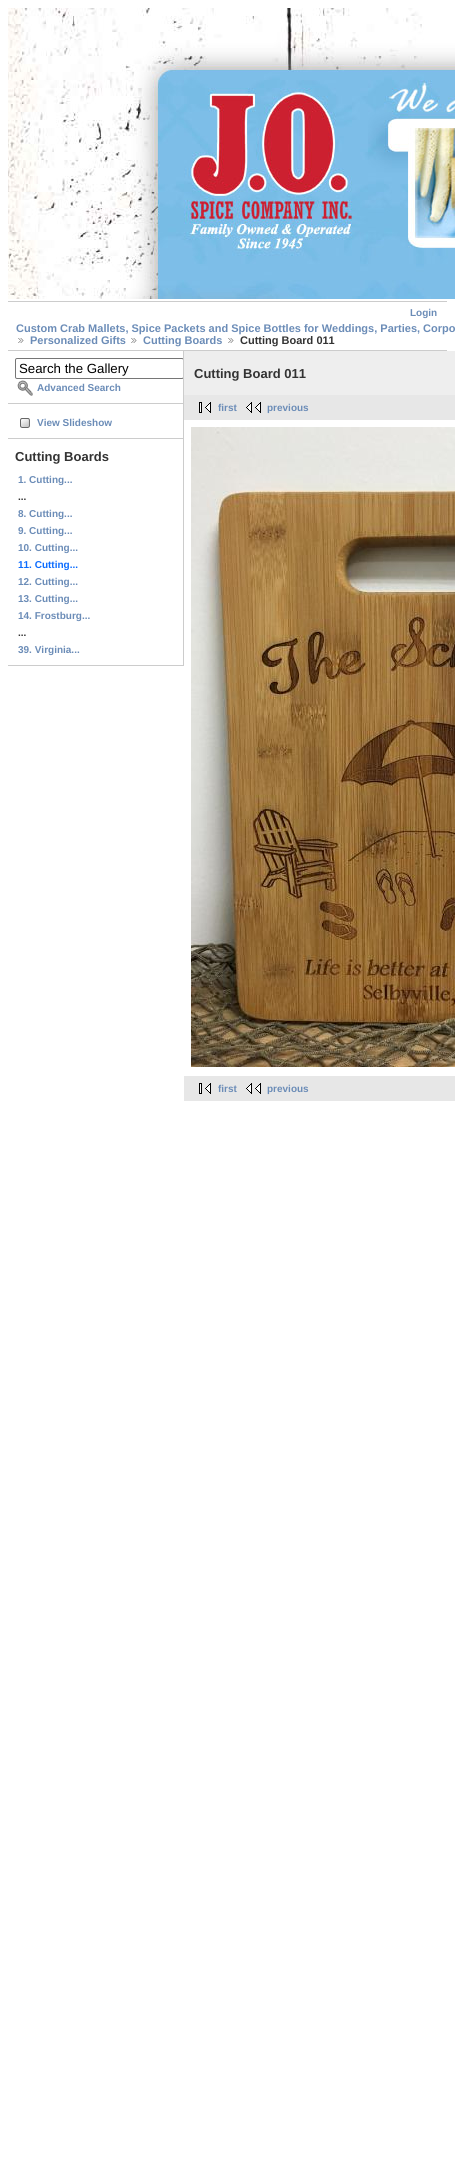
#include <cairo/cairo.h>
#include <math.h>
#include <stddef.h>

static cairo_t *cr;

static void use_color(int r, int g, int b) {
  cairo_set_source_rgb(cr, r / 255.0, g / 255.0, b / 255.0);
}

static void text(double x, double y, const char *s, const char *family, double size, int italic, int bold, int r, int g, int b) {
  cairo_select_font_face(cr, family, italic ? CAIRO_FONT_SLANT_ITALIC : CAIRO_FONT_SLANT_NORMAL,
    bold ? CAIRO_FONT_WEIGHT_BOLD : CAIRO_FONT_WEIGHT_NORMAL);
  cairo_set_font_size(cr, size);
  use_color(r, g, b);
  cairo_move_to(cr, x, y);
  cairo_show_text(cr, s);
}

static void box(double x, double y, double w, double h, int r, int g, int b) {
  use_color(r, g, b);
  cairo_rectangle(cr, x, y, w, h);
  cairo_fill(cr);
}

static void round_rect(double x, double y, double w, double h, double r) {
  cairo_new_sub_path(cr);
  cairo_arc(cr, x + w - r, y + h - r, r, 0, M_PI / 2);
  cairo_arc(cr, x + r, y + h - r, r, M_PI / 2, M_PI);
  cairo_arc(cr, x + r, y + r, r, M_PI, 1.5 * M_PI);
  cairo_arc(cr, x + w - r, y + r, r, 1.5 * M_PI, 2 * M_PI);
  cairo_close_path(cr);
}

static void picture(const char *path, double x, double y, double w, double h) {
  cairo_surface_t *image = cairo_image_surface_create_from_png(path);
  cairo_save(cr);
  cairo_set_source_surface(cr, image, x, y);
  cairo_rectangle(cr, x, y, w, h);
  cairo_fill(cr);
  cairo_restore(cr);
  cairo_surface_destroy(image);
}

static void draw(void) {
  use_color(255, 255, 255);
  cairo_paint(cr);
  picture("img_01.png", 8, 8, 447, 291);
  box(8, 301, 439, 1, 204, 204, 204);
  box(8, 350, 439, 1, 204, 204, 204);
  picture("img_02.png", 18, 338, 6, 5);
  picture("img_02.png", 131, 338, 6, 5);
  picture("img_02.png", 228, 338, 6, 5);
  box(183, 351, 1, 315, 204, 204, 204);
  box(8, 403, 175, 1, 204, 204, 204);
  cairo_save(cr);
  cairo_rectangle(cr, 8, 351, 175, 315);
  cairo_clip(cr);
  round_rect(15.5, 358.5, 168, 20, 1.5);
  use_color(118, 118, 118);
  cairo_set_line_width(cr, 1);
  cairo_stroke(cr);
  cairo_restore(cr);
  picture("img_03.png", 17, 380, 16, 16);
  box(8, 438, 175, 1, 204, 204, 204);
  picture("img_04.png", 20, 418, 10, 10);
  box(8, 665, 175, 1, 204, 204, 204);
  box(184, 351, 271, 44, 238, 238, 238);
  box(184, 395, 271, 25, 231, 231, 231);
  picture("img_05.png", 199, 402, 12, 11);
  picture("img_06.png", 246, 402, 15, 11);
  picture("img_07.png", 191, 427, 264, 640);
  box(184, 1076, 271, 25, 231, 231, 231);
  picture("img_05.png", 199, 1083, 12, 11);
  picture("img_06.png", 246, 1083, 15, 11);
  text(410, 316, "Login", "Liberation Sans", 10, 0, 1, 107, 140, 183);
  text(16, 332, "Custom Crab Mallets, Spice Packets and Spice Bottles for Weddings, Parties, Corpo", "Liberation Sans", 11, 0, 1, 107, 140, 183);
  text(30, 344, "Personalized Gifts", "Liberation Sans", 11, 0, 1, 107, 140, 183);
  text(143, 344, "Cutting Boards", "Liberation Sans", 11, 0, 1, 107, 140, 183);
  text(240, 344, "Cutting Board 011", "Liberation Sans", 11, 0, 1, 51, 51, 51);
  text(19, 373, "Search the Gallery", "Liberation Sans", 13.25, 0, 0, 0, 0, 0);
  text(37, 391, "Advanced Search", "Liberation Sans", 10, 0, 1, 107, 140, 183);
  text(37, 426, "View Slideshow", "Liberation Sans", 10, 0, 1, 107, 140, 183);
  text(15, 461, "Cutting Boards", "Liberation Sans", 13, 0, 1, 51, 51, 51);
  text(18, 483, "1. Cutting...", "Liberation Sans", 10, 0, 1, 107, 140, 183);
  text(18, 500, "...", "Liberation Sans", 10, 0, 1, 51, 51, 51);
  text(18, 517, "8. Cutting...", "Liberation Sans", 10, 0, 1, 107, 140, 183);
  text(18, 534, "9. Cutting...", "Liberation Sans", 10, 0, 1, 107, 140, 183);
  text(18, 551, "10. Cutting...", "Liberation Sans", 10, 0, 1, 107, 140, 183);
  text(18, 568, "11. Cutting...", "Liberation Sans", 10, 0, 1, 11, 108, 255);
  text(18, 585, "12. Cutting...", "Liberation Sans", 10, 0, 1, 107, 140, 183);
  text(18, 602, "13. Cutting...", "Liberation Sans", 10, 0, 1, 107, 140, 183);
  text(18, 619, "14. Frostburg...", "Liberation Sans", 10, 0, 1, 107, 140, 183);
  text(18, 636, "...", "Liberation Sans", 10, 0, 1, 51, 51, 51);
  text(18, 653, "39. Virginia...", "Liberation Sans", 10, 0, 1, 107, 140, 183);
  text(194, 378, "Cutting Board 011", "Liberation Sans", 13, 0, 1, 51, 51, 51);
  text(218, 411, "first", "Liberation Sans", 10, 0, 1, 107, 140, 183);
  text(267, 411, "previous", "Liberation Sans", 10, 0, 1, 107, 140, 183);
  text(218, 1092, "first", "Liberation Sans", 10, 0, 1, 107, 140, 183);
  text(267, 1092, "previous", "Liberation Sans", 10, 0, 1, 107, 140, 183);
}

int main(void) {
  cairo_surface_t *surface = cairo_image_surface_create(CAIRO_FORMAT_RGB24, 455, 2178);
  cr = cairo_create(surface);
  cairo_font_options_t *options = cairo_font_options_create();
  cairo_font_options_set_hint_metrics(options, CAIRO_HINT_METRICS_OFF);
  cairo_font_options_set_hint_style(options, CAIRO_HINT_STYLE_NONE);
  cairo_set_font_options(cr, options);
  cairo_set_miter_limit(cr, 4);
  draw();
  cairo_surface_write_to_png(surface, "out.png");
  cairo_font_options_destroy(options);
  cairo_destroy(cr);
  cairo_surface_destroy(surface);
  return 0;
}
